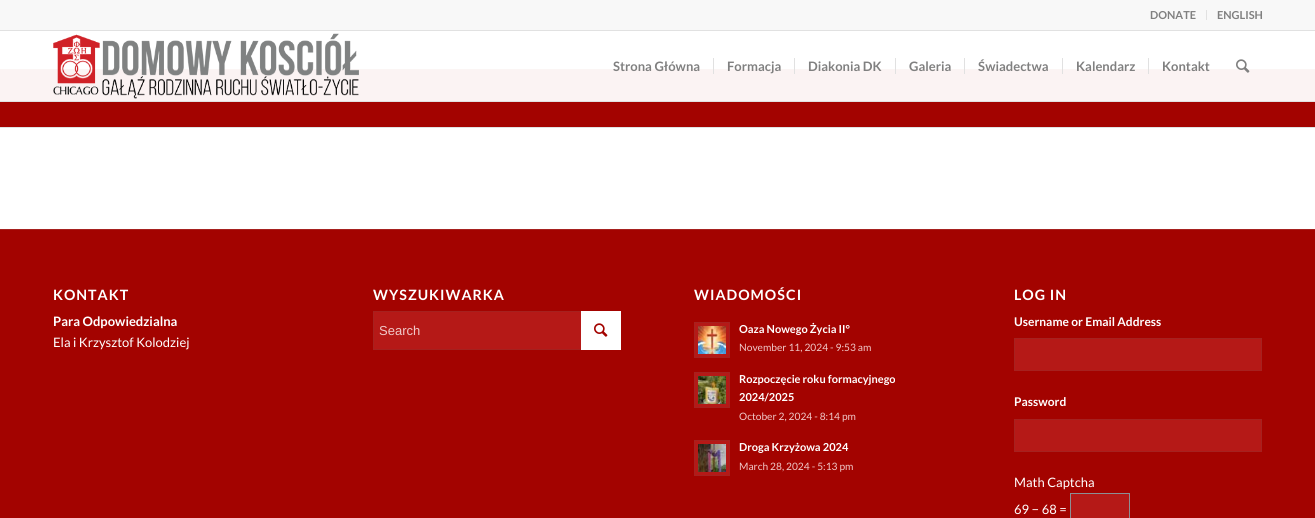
#include <cairo/cairo.h>
#include <math.h>
#include <stddef.h>

static cairo_t *cr;

static void use_color(int r, int g, int b) {
  cairo_set_source_rgb(cr, r / 255.0, g / 255.0, b / 255.0);
}

static void text(double x, double y, const char *s, const char *family, double size, int italic, int bold, int r, int g, int b) {
  cairo_select_font_face(cr, family, italic ? CAIRO_FONT_SLANT_ITALIC : CAIRO_FONT_SLANT_NORMAL,
    bold ? CAIRO_FONT_WEIGHT_BOLD : CAIRO_FONT_WEIGHT_NORMAL);
  cairo_set_font_size(cr, size);
  use_color(r, g, b);
  cairo_move_to(cr, x, y);
  cairo_show_text(cr, s);
}

static void spaced_text(double x, double y, const char *s, double letter, double word) {
  cairo_move_to(cr, x, y);
  while (*s) {
    char ch[5] = {0};
    int n = 0;
    do ch[n++] = *s++; while ((*s & 0xC0) == 0x80);
    cairo_show_text(cr, ch);
    cairo_rel_move_to(cr, letter + word * (*ch == ' '), 0);
  }
}

static void box(double x, double y, double w, double h, int r, int g, int b) {
  use_color(r, g, b);
  cairo_rectangle(cr, x, y, w, h);
  cairo_fill(cr);
}

static void picture(const char *path, double x, double y, double w, double h) {
  cairo_surface_t *image = cairo_image_surface_create_from_png(path);
  cairo_save(cr);
  cairo_set_source_surface(cr, image, x, y);
  cairo_rectangle(cr, x, y, w, h);
  cairo_fill(cr);
  cairo_restore(cr);
  cairo_surface_destroy(image);
}

static void draw(void) {
  use_color(255, 255, 255);
  cairo_paint(cr);
  box(0, 0, 1315, 30, 248, 248, 248);
  box(0, 30, 1315, 1, 225, 225, 225);
  box(1206, 10, 1, 10, 225, 225, 225);
  box(0, 70, 1315, 57, 163, 3, 0);
  box(0, 101, 1315, 1, 225, 225, 225);
  box(0, 69, 1315, 1, 166, 33, 31);
  cairo_set_source_rgba(cr, 1, 1, 1, 0.95);
  cairo_rectangle(cr, 0, 69, 1315, 32);
  cairo_fill(cr);
  picture("img_01.png", 53, 33, 306, 66);
  box(713, 58, 1, 16, 225, 225, 225);
  box(794, 58, 1, 16, 225, 225, 225);
  box(895, 58, 1, 16, 225, 225, 225);
  box(964, 58, 1, 16, 225, 225, 225);
  box(1062, 58, 1, 16, 225, 225, 225);
  box(1148, 58, 1, 16, 225, 225, 225);
  picture("img_02.png", 1236, 59, 14, 14);
  box(0, 127, 1315, 1, 225, 225, 225);
  box(0, 230, 1315, 288, 163, 3, 0);
  box(0, 229, 1315, 1, 166, 33, 31);
  box(374, 312, 207, 37, 181, 25, 23);
  cairo_rectangle(cr, 373.5, 311.5, 247, 38);
  use_color(166, 33, 31);
  cairo_set_line_width(cr, 1);
  cairo_stroke(cr);
  box(581, 311, 40, 39, 255, 255, 255);
  picture("img_03.png", 594, 323, 14, 14);
  use_color(181, 25, 23);
  cairo_rectangle(cr, 694.5, 322.5, 35, 35);
  cairo_fill_preserve(cr);
  use_color(166, 33, 31);
  cairo_stroke(cr);
  picture("img_04.png", 698, 326, 28, 28);
  use_color(181, 25, 23);
  cairo_rectangle(cr, 694.5, 372.5, 35, 35);
  cairo_fill_preserve(cr);
  use_color(166, 33, 31);
  cairo_stroke(cr);
  picture("img_05.png", 698, 376, 28, 28);
  use_color(181, 25, 23);
  cairo_rectangle(cr, 694.5, 440.5, 35, 35);
  cairo_fill_preserve(cr);
  use_color(166, 33, 31);
  cairo_stroke(cr);
  picture("img_06.png", 698, 444, 28, 28);
  use_color(181, 25, 23);
  cairo_rectangle(cr, 1014.5, 338.5, 247, 32);
  cairo_fill_preserve(cr);
  use_color(166, 33, 31);
  cairo_stroke(cr);
  use_color(181, 25, 23);
  cairo_rectangle(cr, 1014.5, 419.5, 247, 32);
  cairo_fill_preserve(cr);
  use_color(166, 33, 31);
  cairo_stroke(cr);
  use_color(181, 25, 23);
  cairo_rectangle(cr, 1070.5, 493.5, 59, 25);
  cairo_fill_preserve(cr);
  use_color(140, 143, 148);
  cairo_stroke(cr);
  text(1150, 19, "DONATE", "Lato", 11, 0, 1, 128, 128, 128);
  text(1217, 19, "ENGLISH", "Lato", 11, 0, 1, 128, 128, 128);
  text(613, 71, "Strona Główna", "Lato", 13, 0, 1, 128, 128, 128);
  text(727, 71, "Formacja", "Lato", 13, 0, 1, 128, 128, 128);
  text(808, 71, "Diakonia DK", "Lato", 13, 0, 1, 128, 128, 128);
  text(909, 71, "Galeria", "Lato", 13, 0, 1, 128, 128, 128);
  text(978, 71, "Świadectwa", "Lato", 13, 0, 1, 128, 128, 128);
  text(1076, 71, "Kalendarz", "Lato", 13, 0, 1, 128, 128, 128);
  text(1162, 71, "Kontakt", "Lato", 13, 0, 1, 128, 128, 128);
  cairo_set_font_size(cr, 14.25);
  use_color(255, 255, 255);
  spaced_text(53, 300, "KONTAKT", 1, 0);
  text(53, 326, "Para Odpowiedzialna", "Lato", 13, 0, 1, 255, 255, 255);
  text(53, 347, "Ela i Krzysztof Kolodziej", "Lato", 13, 0, 0, 255, 255, 255);
  cairo_select_font_face(cr, "Lato", CAIRO_FONT_SLANT_NORMAL, CAIRO_FONT_WEIGHT_BOLD);
  cairo_set_font_size(cr, 14.25);
  spaced_text(373, 300, "WYSZUKIWARKA", 1, 0);
  text(379, 335, "Search", "Liberation Sans", 13, 0, 0, 240, 201, 201);
  cairo_select_font_face(cr, "Lato", CAIRO_FONT_SLANT_NORMAL, CAIRO_FONT_WEIGHT_BOLD);
  cairo_set_font_size(cr, 14.25);
  use_color(255, 255, 255);
  spaced_text(694, 300, "WIADOMOŚCI", 1, 0);
  text(739, 333, "Oaza Nowego Życia II°", "Lato", 11, 0, 1, 255, 255, 255);
  text(739, 351, "November 11, 2024 - 9:53 am", "Lato", 10.2, 0, 0, 240, 201, 201);
  text(739, 383, "Rozpoczęcie roku formacyjnego", "Lato", 11, 0, 1, 255, 255, 255);
  text(739, 401, "2024/2025", "Lato", 11, 0, 1, 255, 255, 255);
  text(739, 420, "October 2, 2024 - 8:14 pm", "Lato", 10.2, 0, 0, 240, 201, 201);
  text(739, 451, "Droga Krzyżowa 2024", "Lato", 11, 0, 1, 255, 255, 255);
  text(739, 470, "March 28, 2024 - 5:13 pm", "Lato", 10.2, 0, 0, 240, 201, 201);
  cairo_select_font_face(cr, "Lato", CAIRO_FONT_SLANT_NORMAL, CAIRO_FONT_WEIGHT_BOLD);
  cairo_set_font_size(cr, 14.25);
  use_color(255, 255, 255);
  spaced_text(1014, 300, "LOG IN", 1, 0);
  text(1014, 326, "Username or Email Address", "Lato", 12, 0, 1, 255, 255, 255);
  text(1014, 406, "Password", "Lato", 12, 0, 1, 255, 255, 255);
  text(1014, 487, "Math Captcha", "Lato", 13, 0, 0, 255, 255, 255);
  text(1014, 514, "69 − 68 =", "Lato", 13, 0, 0, 255, 255, 255);
}

int main(void) {
  cairo_surface_t *surface = cairo_image_surface_create(CAIRO_FORMAT_RGB24, 1315, 518);
  cr = cairo_create(surface);
  cairo_font_options_t *options = cairo_font_options_create();
  cairo_font_options_set_hint_metrics(options, CAIRO_HINT_METRICS_OFF);
  cairo_font_options_set_hint_style(options, CAIRO_HINT_STYLE_NONE);
  cairo_set_font_options(cr, options);
  cairo_set_miter_limit(cr, 4);
  draw();
  cairo_surface_write_to_png(surface, "out.png");
  cairo_font_options_destroy(options);
  cairo_destroy(cr);
  cairo_surface_destroy(surface);
  return 0;
}
